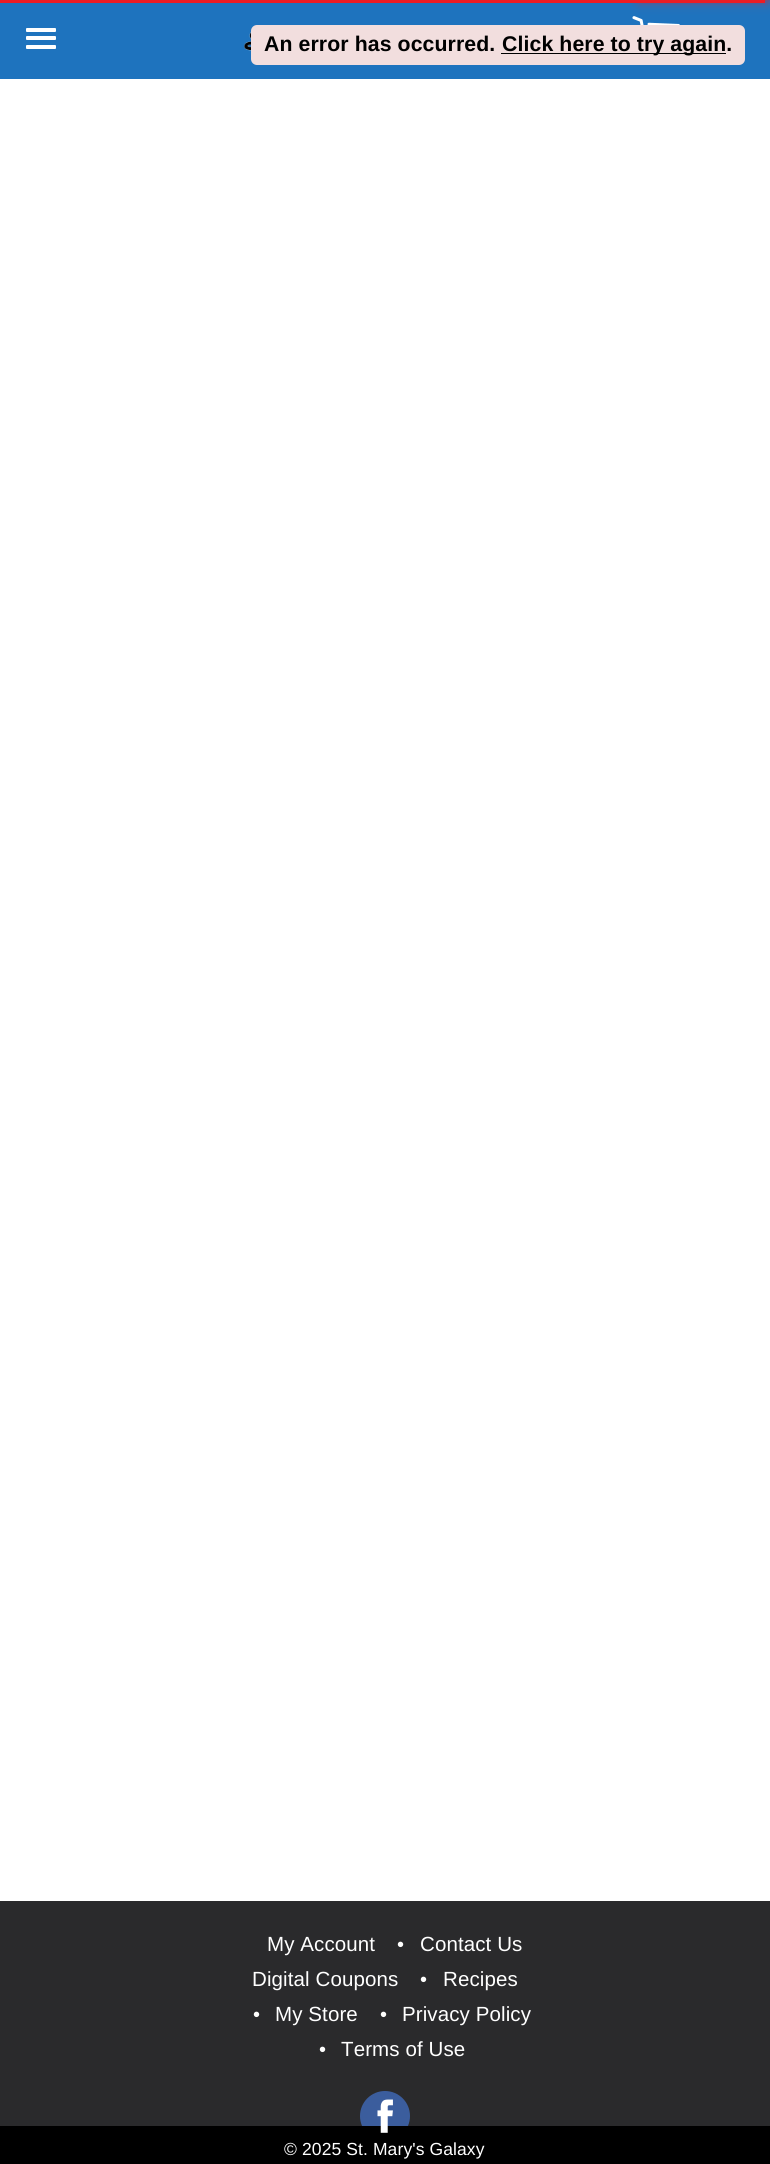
#include <cairo/cairo.h>
#include <math.h>
#include <stddef.h>

static cairo_t *cr;

static void use_color(int r, int g, int b) {
  cairo_set_source_rgb(cr, r / 255.0, g / 255.0, b / 255.0);
}

static void spaced_text(double x, double y, const char *s, double letter, double word) {
  cairo_move_to(cr, x, y);
  while (*s) {
    char ch[5] = {0};
    int n = 0;
    do ch[n++] = *s++; while ((*s & 0xC0) == 0x80);
    cairo_show_text(cr, ch);
    cairo_rel_move_to(cr, letter + word * (*ch == ' '), 0);
  }
}

static void box(double x, double y, double w, double h, int r, int g, int b) {
  use_color(r, g, b);
  cairo_rectangle(cr, x, y, w, h);
  cairo_fill(cr);
}

static void round_rect(double x, double y, double w, double h, double r) {
  cairo_new_sub_path(cr);
  cairo_arc(cr, x + w - r, y + h - r, r, 0, M_PI / 2);
  cairo_arc(cr, x + r, y + h - r, r, M_PI / 2, M_PI);
  cairo_arc(cr, x + r, y + r, r, M_PI, 1.5 * M_PI);
  cairo_arc(cr, x + w - r, y + r, r, 1.5 * M_PI, 2 * M_PI);
  cairo_close_path(cr);
}

static void shadow(double x, double y, double w, double h, double r, double blur, double alpha) {
  cairo_push_group_with_content(cr, CAIRO_CONTENT_ALPHA);
  cairo_set_operator(cr, CAIRO_OPERATOR_SOURCE);
  for (int i = 15; i >= -15 && fmin(w, h) + blur * i / 3 > 0; i -= 2) {
    double e = blur * i / 6;
    cairo_set_source_rgba(cr, 0, 0, 0, alpha * erfc((i - 1) / 8.5) / 2);
    round_rect(x - e, y - e, w + 2 * e, h + 2 * e, fmax(0, fmin(r + e + blur * .6, fmin(w, h) / 2 + e)));
    cairo_fill(cr);
  }
  cairo_pattern_t *soft = cairo_pop_group(cr);
  cairo_mask(cr, soft);
  cairo_pattern_destroy(soft);
}

static void picture(const char *path, double x, double y, double w, double h) {
  cairo_surface_t *image = cairo_image_surface_create_from_png(path);
  cairo_save(cr);
  cairo_set_source_surface(cr, image, x, y);
  cairo_rectangle(cr, x, y, w, h);
  cairo_fill(cr);
  cairo_restore(cr);
  cairo_surface_destroy(image);
}

static void draw(void) {
  use_color(255, 255, 255);
  cairo_paint(cr);
  box(0, 0, 770, 79, 30, 115, 190);
  box(0, 0, 765, 3, 237, 28, 36);
  use_color(237, 28, 36);
  shadow(641, -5, 125, 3, 0, 3, 1);
  picture("img_01.png", 632, 16, 48, 9);
  shadow(641, -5, 125, 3, 0, 6.5, 1);
  picture("img_02.png", 244, 30, 8, 21);
  use_color(242, 222, 222);
  round_rect(251, 25, 494, 40, 6);
  cairo_fill(cr);
  box(501, 53, 225, 1, 0, 0, 0);
  use_color(255, 255, 255);
  round_rect(26, 28, 30, 4, 1);
  cairo_fill(cr);
  round_rect(26, 36, 30, 4, 1);
  cairo_fill(cr);
  round_rect(26, 45, 30, 4, 1);
  cairo_fill(cr);
  box(0, 1901, 770, 225, 42, 42, 44);
  use_color(59, 93, 157);
  cairo_arc(cr, 385, 2116, 25, 0, 2 * M_PI);
  cairo_fill(cr);
  box(0, 2126, 770, 38, 0, 0, 0);
  picture("img_03.png", 377, 2099, 16, 34);
  cairo_select_font_face(cr, "Liberation Sans", CAIRO_FONT_SLANT_NORMAL, CAIRO_FONT_WEIGHT_BOLD);
  cairo_set_font_size(cr, 21.25);
  spaced_text(264, 51, "An error has occurred.", 0.1, 0);
  spaced_text(502, 51, "Click here to try again.", 0.1, 0);
  cairo_select_font_face(cr, "Liberation Sans", CAIRO_FONT_SLANT_NORMAL, CAIRO_FONT_WEIGHT_NORMAL);
  cairo_set_font_size(cr, 20.5);
  use_color(255, 255, 255);
  spaced_text(267, 1951, "My Account", 0.1, 0);
  cairo_set_font_size(cr, 20);
  spaced_text(397, 1951, "•", 0.1, 0);
  cairo_set_font_size(cr, 20.5);
  spaced_text(420, 1951, "Contact Us", 0.1, 0);
  spaced_text(252, 1986, "Digital Coupons", 0.1, 0);
  cairo_set_font_size(cr, 20);
  spaced_text(420, 1986, "•", 0.1, 0);
  cairo_set_font_size(cr, 20.5);
  spaced_text(443, 1986, "Recipes", 0.1, 0);
  cairo_set_font_size(cr, 20);
  spaced_text(253, 2021, "•", 0.1, 0);
  cairo_set_font_size(cr, 20.5);
  spaced_text(275, 2021, "My Store", 0.1, 0);
  cairo_set_font_size(cr, 20);
  spaced_text(380, 2021, "•", 0.1, 0);
  cairo_set_font_size(cr, 20.5);
  spaced_text(402, 2021, "Privacy Policy", 0.1, 0);
  cairo_set_font_size(cr, 20);
  spaced_text(319, 2056, "•", 0.1, 0);
  cairo_set_font_size(cr, 20.5);
  spaced_text(341, 2056, "Terms of Use", 0.1, 0);
  cairo_set_font_size(cr, 17.5);
  spaced_text(284, 2155, "© 2025 St. Mary's Galaxy", 0.1, 0);
}

int main(void) {
  cairo_surface_t *surface = cairo_image_surface_create(CAIRO_FORMAT_RGB24, 770, 2164);
  cr = cairo_create(surface);
  cairo_font_options_t *options = cairo_font_options_create();
  cairo_font_options_set_hint_metrics(options, CAIRO_HINT_METRICS_OFF);
  cairo_font_options_set_hint_style(options, CAIRO_HINT_STYLE_NONE);
  cairo_set_font_options(cr, options);
  cairo_set_miter_limit(cr, 4);
  draw();
  cairo_surface_write_to_png(surface, "out.png");
  cairo_font_options_destroy(options);
  cairo_destroy(cr);
  cairo_surface_destroy(surface);
  return 0;
}
